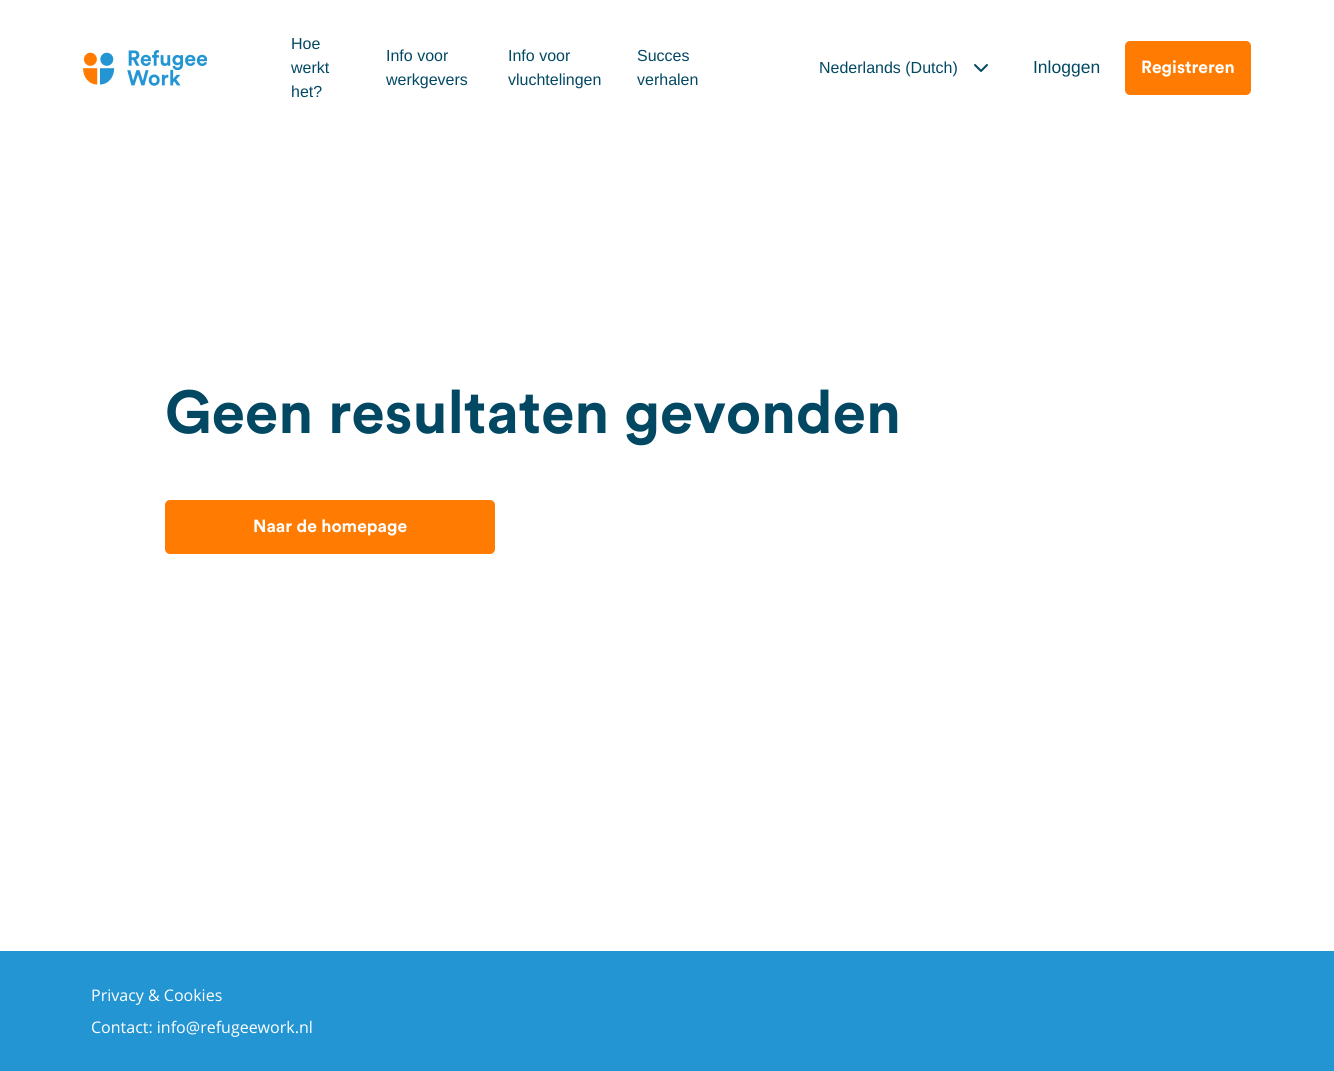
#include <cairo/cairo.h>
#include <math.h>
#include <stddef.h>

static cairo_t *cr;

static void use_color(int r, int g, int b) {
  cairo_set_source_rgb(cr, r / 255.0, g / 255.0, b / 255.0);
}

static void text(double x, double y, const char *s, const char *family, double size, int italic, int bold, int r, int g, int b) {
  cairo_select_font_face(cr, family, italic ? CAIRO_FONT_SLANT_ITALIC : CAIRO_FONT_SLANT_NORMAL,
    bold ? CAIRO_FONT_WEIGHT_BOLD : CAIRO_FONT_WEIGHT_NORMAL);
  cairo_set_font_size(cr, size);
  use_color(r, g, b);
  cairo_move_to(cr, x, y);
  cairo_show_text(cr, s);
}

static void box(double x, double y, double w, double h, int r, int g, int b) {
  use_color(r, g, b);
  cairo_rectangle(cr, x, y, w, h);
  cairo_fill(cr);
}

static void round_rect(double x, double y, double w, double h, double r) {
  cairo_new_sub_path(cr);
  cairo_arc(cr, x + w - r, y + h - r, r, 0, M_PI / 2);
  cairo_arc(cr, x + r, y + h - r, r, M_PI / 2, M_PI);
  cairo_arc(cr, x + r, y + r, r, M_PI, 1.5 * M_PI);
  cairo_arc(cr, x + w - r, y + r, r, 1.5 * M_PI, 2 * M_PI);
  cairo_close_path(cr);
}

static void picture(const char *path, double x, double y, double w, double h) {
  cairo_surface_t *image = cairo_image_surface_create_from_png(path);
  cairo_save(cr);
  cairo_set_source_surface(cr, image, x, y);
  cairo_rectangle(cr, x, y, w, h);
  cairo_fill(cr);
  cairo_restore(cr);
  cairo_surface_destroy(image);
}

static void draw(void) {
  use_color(255, 255, 255);
  cairo_paint(cr);
  picture("img_01.png", 83, 50, 124, 36);
  picture("img_02.png", 974, 64, 14, 8);
  use_color(255, 123, 2);
  round_rect(1125, 41, 126, 54, 5);
  cairo_fill(cr);
  round_rect(165, 500, 330, 54, 5);
  cairo_fill(cr);
  box(0, 951, 1334, 120, 35, 149, 211);
  text(291, 49, "Hoe", "Liberation Sans", 16, 0, 0, 2, 72, 99);
  text(291, 73, "werkt", "Liberation Sans", 16, 0, 0, 2, 72, 99);
  text(291, 97, "het?", "Liberation Sans", 16, 0, 0, 2, 72, 99);
  text(386, 61, "Info voor", "Liberation Sans", 16, 0, 0, 2, 72, 99);
  text(386, 85, "werkgevers", "Liberation Sans", 16, 0, 0, 2, 72, 99);
  text(508, 61, "Info voor", "Liberation Sans", 16, 0, 0, 2, 72, 99);
  text(508, 85, "vluchtelingen", "Liberation Sans", 16, 0, 0, 2, 72, 99);
  text(637, 61, "Succes", "Liberation Sans", 16, 0, 0, 2, 72, 99);
  text(637, 85, "verhalen", "Liberation Sans", 16, 0, 0, 2, 72, 99);
  text(819, 73, "Nederlands (Dutch)", "Liberation Sans", 16, 0, 0, 2, 72, 99);
  text(1033, 73, "Inloggen", "Liberation Sans", 17.5, 0, 0, 2, 72, 99);
  text(1141, 73, "Registreren", "Circular", 17.5, 0, 1, 255, 255, 255);
  text(165, 433, "Geen resultaten gevonden", "Circular", 60, 0, 1, 2, 72, 99);
  text(253, 532, "Naar de homepage", "Circular", 17.5, 0, 1, 255, 255, 255);
  text(91, 1001, "Privacy & Cookies", "Open Sans", 16, 0, 0, 255, 255, 255);
  text(91, 1033, "Contact: info@refugeework.nl", "Open Sans", 16, 0, 0, 255, 255, 255);
}

int main(void) {
  cairo_surface_t *surface = cairo_image_surface_create(CAIRO_FORMAT_RGB24, 1334, 1071);
  cr = cairo_create(surface);
  cairo_font_options_t *options = cairo_font_options_create();
  cairo_font_options_set_hint_metrics(options, CAIRO_HINT_METRICS_OFF);
  cairo_font_options_set_hint_style(options, CAIRO_HINT_STYLE_NONE);
  cairo_set_font_options(cr, options);
  cairo_set_miter_limit(cr, 4);
  draw();
  cairo_surface_write_to_png(surface, "out.png");
  cairo_font_options_destroy(options);
  cairo_destroy(cr);
  cairo_surface_destroy(surface);
  return 0;
}
